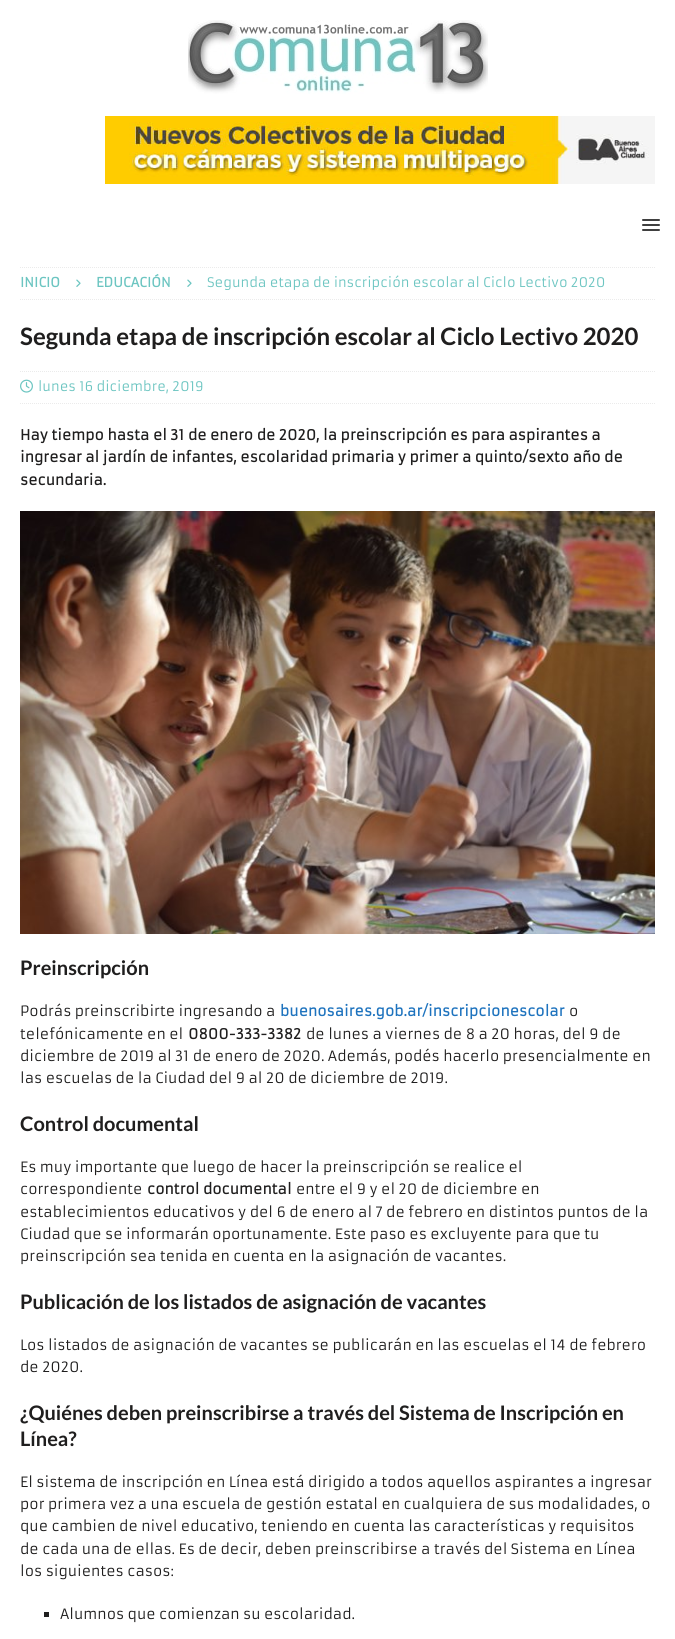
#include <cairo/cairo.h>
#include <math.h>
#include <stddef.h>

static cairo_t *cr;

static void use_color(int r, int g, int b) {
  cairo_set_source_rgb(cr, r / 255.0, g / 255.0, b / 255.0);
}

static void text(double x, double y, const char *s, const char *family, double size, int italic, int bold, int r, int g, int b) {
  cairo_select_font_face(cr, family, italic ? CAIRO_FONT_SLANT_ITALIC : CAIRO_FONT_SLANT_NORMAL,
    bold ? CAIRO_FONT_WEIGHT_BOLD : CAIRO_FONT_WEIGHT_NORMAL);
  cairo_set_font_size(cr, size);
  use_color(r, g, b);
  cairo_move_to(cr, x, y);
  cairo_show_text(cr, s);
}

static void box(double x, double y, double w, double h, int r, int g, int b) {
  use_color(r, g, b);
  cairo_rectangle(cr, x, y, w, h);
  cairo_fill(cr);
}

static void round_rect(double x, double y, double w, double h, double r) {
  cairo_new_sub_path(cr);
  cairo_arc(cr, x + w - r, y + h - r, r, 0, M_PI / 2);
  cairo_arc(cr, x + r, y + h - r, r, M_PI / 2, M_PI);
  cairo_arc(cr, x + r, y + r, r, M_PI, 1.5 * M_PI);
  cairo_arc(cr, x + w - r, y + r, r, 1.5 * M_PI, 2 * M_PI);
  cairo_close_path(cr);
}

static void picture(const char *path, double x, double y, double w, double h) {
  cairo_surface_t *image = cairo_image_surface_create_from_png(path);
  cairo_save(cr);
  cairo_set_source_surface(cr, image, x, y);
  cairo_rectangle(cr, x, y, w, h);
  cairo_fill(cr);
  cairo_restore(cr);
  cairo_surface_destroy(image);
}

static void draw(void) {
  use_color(255, 255, 255);
  cairo_paint(cr);
  picture("img_01.png", 188, 20, 300, 74);
  picture("img_02.png", 105, 116, 550, 68);
  use_color(63, 63, 63);
  round_rect(642, 219, 18, 2, 1);
  cairo_fill(cr);
  round_rect(642, 224, 18, 2, 1);
  cairo_fill(cr);
  round_rect(642, 229, 18, 2, 1);
  cairo_fill(cr);
  cairo_new_path(cr);
  cairo_move_to(cr, 20, 267.5);
  cairo_line_to(cr, 655, 267.5);
  use_color(235, 235, 235);
  cairo_set_line_width(cr, 1);
  cairo_set_dash(cr, (double[]){1, 1}, 2, 0);
  cairo_stroke(cr);
  cairo_new_path(cr);
  cairo_move_to(cr, 20, 299.5);
  cairo_line_to(cr, 655, 299.5);
  cairo_stroke(cr);
  picture("img_03.png", 76, 279, 5, 8);
  picture("img_03.png", 187, 279, 5, 8);
  cairo_new_path(cr);
  cairo_move_to(cr, 20, 371.5);
  cairo_line_to(cr, 655, 371.5);
  cairo_stroke(cr);
  cairo_new_path(cr);
  cairo_move_to(cr, 20, 403.5);
  cairo_line_to(cr, 655, 403.5);
  cairo_stroke(cr);
  picture("img_04.png", 20, 379, 13, 14);
  picture("img_05.png", 20, 511, 635, 423);
  box(44, 1612, 5, 5, 31, 30, 30);
  text(20, 287, "INICIO", "Armata", 13, 0, 1, 108, 197, 193);
  text(96, 287, "EDUCACIÓN", "Armata", 13, 0, 1, 108, 197, 193);
  text(207, 287, "Segunda etapa de inscripción escolar al Ciclo Lectivo 2020", "Armata", 13, 0, 0, 108, 197, 193);
  text(20, 345, "Segunda etapa de inscripción escolar al Ciclo Lectivo 2020", "Lato", 24, 0, 1, 31, 30, 30);
  text(38, 391, "lunes 16 diciembre, 2019", "Armata", 13, 0, 0, 108, 197, 193);
  text(20, 440, "Hay tiempo hasta el 31 de enero de 2020, la preinscripción es para aspirantes a", "Armata", 14, 0, 1, 31, 30, 30);
  text(20, 462, "ingresar al jardín de infantes, escolaridad primaria y primer a quinto/sexto año de", "Armata", 14, 0, 1, 31, 30, 30);
  text(20, 485, "secundaria.", "Armata", 14, 0, 1, 31, 30, 30);
  text(20, 975, "Preinscripción", "Lato", 20, 0, 1, 31, 30, 30);
  text(20, 1016, "Podrás preinscribirte ingresando a", "Armata", 14, 0, 0, 31, 30, 30);
  text(280, 1016, "buenosaires.gob.ar/inscripcionescolar", "Armata", 14, 0, 1, 30, 115, 190);
  text(569, 1016, "o", "Armata", 14, 0, 0, 31, 30, 30);
  text(20, 1039, "telefónicamente en el", "Armata", 14, 0, 0, 31, 30, 30);
  text(188, 1039, "0800-333-3382", "Armata", 14, 0, 1, 31, 30, 30);
  text(306, 1039, "de lunes a viernes de 8 a 20 horas, del 9 de", "Armata", 14, 0, 0, 31, 30, 30);
  text(20, 1061, "diciembre de 2019 al 31 de enero de 2020. Además, podés hacerlo presencialmente en", "Armata", 14, 0, 0, 31, 30, 30);
  text(20, 1083, "las escuelas de la Ciudad del 9 al 20 de diciembre de 2019.", "Armata", 14, 0, 0, 31, 30, 30);
  text(20, 1131, "Control documental", "Lato", 20, 0, 1, 31, 30, 30);
  text(20, 1172, "Es muy importante que luego de hacer la preinscripción se realice el", "Armata", 14, 0, 0, 31, 30, 30);
  text(20, 1194, "correspondiente", "Armata", 14, 0, 0, 31, 30, 30);
  text(147, 1194, "control documental", "Armata", 14, 0, 1, 31, 30, 30);
  text(296, 1194, "entre el 9 y el 20 de diciembre en", "Armata", 14, 0, 0, 31, 30, 30);
  text(20, 1217, "establecimientos educativos y del 6 de enero al 7 de febrero en distintos puntos de la", "Armata", 14, 0, 0, 31, 30, 30);
  text(20, 1239, "Ciudad que se informarán oportunamente. Este paso es excluyente para que tu", "Armata", 14, 0, 0, 31, 30, 30);
  text(20, 1261, "preinscripción sea tenida en cuenta en la asignación de vacantes.", "Armata", 14, 0, 0, 31, 30, 30);
  text(20, 1309, "Publicación de los listados de asignación de vacantes", "Lato", 20, 0, 1, 31, 30, 30);
  text(20, 1350, "Los listados de asignación de vacantes se publicarán en las escuelas el 14 de febrero", "Armata", 14, 0, 0, 31, 30, 30);
  text(20, 1372, "de 2020.", "Armata", 14, 0, 0, 31, 30, 30);
  text(20, 1420, "¿Quiénes deben preinscribirse a través del Sistema de Inscripción en", "Lato", 20, 0, 1, 31, 30, 30);
  text(20, 1446, "Línea?", "Lato", 20, 0, 1, 31, 30, 30);
  text(20, 1487, "El sistema de inscripción en Línea está dirigido a todos aquellos aspirantes a ingresar", "Armata", 14, 0, 0, 31, 30, 30);
  text(20, 1509, "por primera vez a una escuela de gestión estatal en cualquiera de sus modalidades, o", "Armata", 14, 0, 0, 31, 30, 30);
  text(20, 1531, "que cambien de nivel educativo, teniendo en cuenta las características y requisitos", "Armata", 14, 0, 0, 31, 30, 30);
  text(20, 1554, "de cada una de ellas. Es de decir, deben preinscribirse a través del Sistema en Línea", "Armata", 14, 0, 0, 31, 30, 30);
  text(20, 1576, "los siguientes casos:", "Armata", 14, 0, 0, 31, 30, 30);
  text(60, 1619, "Alumnos que comienzan su escolaridad.", "Armata", 14, 0, 0, 31, 30, 30);
}

int main(void) {
  cairo_surface_t *surface = cairo_image_surface_create(CAIRO_FORMAT_RGB24, 675, 1639);
  cr = cairo_create(surface);
  cairo_font_options_t *options = cairo_font_options_create();
  cairo_font_options_set_hint_metrics(options, CAIRO_HINT_METRICS_OFF);
  cairo_font_options_set_hint_style(options, CAIRO_HINT_STYLE_NONE);
  cairo_set_font_options(cr, options);
  cairo_set_miter_limit(cr, 4);
  draw();
  cairo_surface_write_to_png(surface, "out.png");
  cairo_font_options_destroy(options);
  cairo_destroy(cr);
  cairo_surface_destroy(surface);
  return 0;
}
